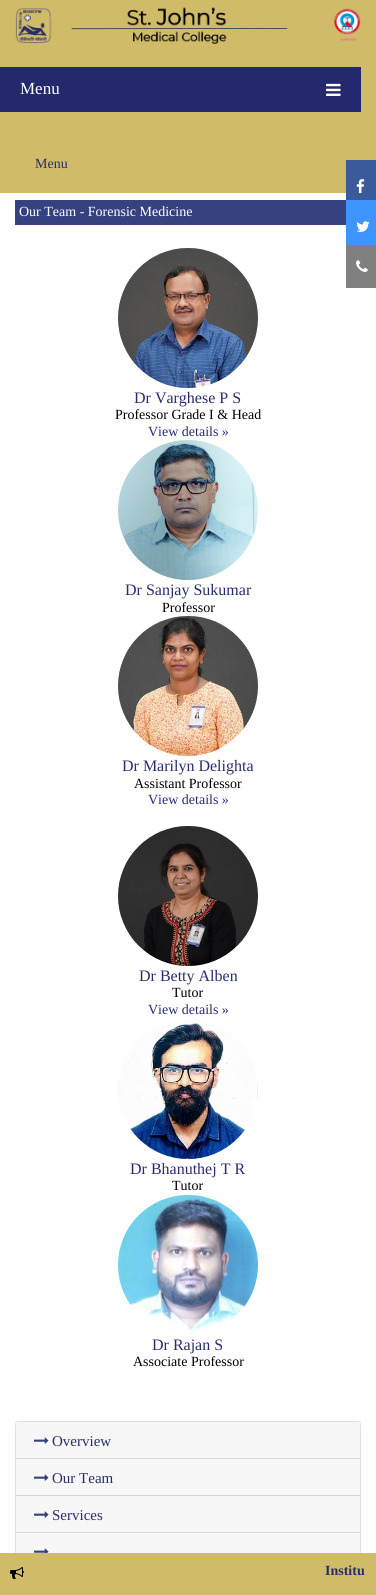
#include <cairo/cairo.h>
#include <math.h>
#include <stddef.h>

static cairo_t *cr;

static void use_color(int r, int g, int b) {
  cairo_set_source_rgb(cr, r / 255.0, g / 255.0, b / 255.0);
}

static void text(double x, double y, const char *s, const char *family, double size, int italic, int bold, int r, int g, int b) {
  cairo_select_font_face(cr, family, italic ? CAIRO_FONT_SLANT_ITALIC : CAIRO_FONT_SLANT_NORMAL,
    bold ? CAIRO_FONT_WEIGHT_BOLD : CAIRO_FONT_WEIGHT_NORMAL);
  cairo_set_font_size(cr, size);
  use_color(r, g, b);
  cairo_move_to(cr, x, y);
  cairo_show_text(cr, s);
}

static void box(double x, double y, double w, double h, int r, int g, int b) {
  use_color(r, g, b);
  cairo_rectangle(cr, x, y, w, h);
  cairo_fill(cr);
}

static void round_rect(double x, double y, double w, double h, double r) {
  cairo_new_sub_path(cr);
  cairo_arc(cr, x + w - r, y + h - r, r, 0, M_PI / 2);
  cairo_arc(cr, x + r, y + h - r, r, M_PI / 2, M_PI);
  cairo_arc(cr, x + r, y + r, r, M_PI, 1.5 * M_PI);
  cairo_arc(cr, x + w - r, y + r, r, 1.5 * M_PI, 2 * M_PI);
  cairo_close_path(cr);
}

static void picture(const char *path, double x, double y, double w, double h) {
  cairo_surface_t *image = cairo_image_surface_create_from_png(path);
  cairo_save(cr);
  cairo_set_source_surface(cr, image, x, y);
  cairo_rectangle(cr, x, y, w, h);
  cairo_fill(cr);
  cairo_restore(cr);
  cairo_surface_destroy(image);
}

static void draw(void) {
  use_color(255, 255, 255);
  cairo_paint(cr);
  box(0, 0, 376, 193, 208, 187, 104);
  picture("img_01.png", 15, 7, 346, 37);
  box(0, 67, 361, 45, 36, 40, 109);
  picture("img_02.png", 326, 83, 15, 13);
  box(15, 200, 331, 25, 54, 66, 128);
  picture("img_03.png", 118, 248, 140, 140);
  picture("img_04.png", 118, 440, 140, 140);
  picture("img_05.png", 118, 616, 140, 140);
  picture("img_06.png", 118, 826, 140, 140);
  picture("img_07.png", 118, 1020, 140, 139);
  picture("img_08.png", 118, 1195, 140, 140);
  box(15, 1421, 346, 4, 247, 247, 247);
  use_color(255, 255, 255);
  round_rect(15, 1421, 346, 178, 4);
  cairo_fill(cr);
  round_rect(15.5, 1421.5, 345, 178, 3.5);
  cairo_set_source_rgba(cr, 0, 0, 0, 0.12);
  cairo_set_line_width(cr, 1);
  cairo_stroke(cr);
  box(16, 1422, 344, 36, 247, 247, 247);
  picture("img_09.png", 34, 1437, 15, 7);
  box(16, 1459, 344, 36, 247, 247, 247);
  box(16, 1458, 344, 1, 216, 216, 216);
  picture("img_09.png", 34, 1474, 15, 7);
  box(16, 1496, 344, 36, 247, 247, 247);
  box(16, 1495, 344, 1, 216, 216, 216);
  picture("img_09.png", 34, 1511, 15, 7);
  box(16, 1533, 344, 20, 247, 247, 247);
  box(16, 1532, 344, 1, 216, 216, 216);
  picture("img_10.png", 34, 1548, 15, 5);
  box(346, 160, 30, 40, 60, 90, 154);
  picture("img_11.png", 356, 179, 9, 15);
  box(346, 200, 30, 45, 63, 149, 254);
  picture("img_12.png", 356, 221, 14, 11);
  box(346, 245, 30, 43, 128, 128, 128);
  picture("img_13.png", 356, 260, 12, 12);
  box(0, 1553, 376, 42, 208, 187, 104);
  picture("img_14.png", 10, 1567, 14, 12);
  text(20, 94, "Menu", "Liberation Serif", 17, 0, 0, 255, 255, 255);
  text(35, 168, "Menu", "Liberation Serif", 14, 0, 0, 41, 45, 110);
  text(19, 216, "Our Team - Forensic Medicine", "Liberation Serif", 14, 0, 0, 255, 255, 255);
  text(134, 403, "Dr Varghese P S", "Liberation Serif", 16, 0, 0, 41, 45, 110);
  text(115, 419, "Professor Grade I & Head", "Liberation Serif", 14, 0, 0, 0, 0, 0);
  text(148, 436, "View details »", "Liberation Serif", 14, 0, 0, 41, 45, 110);
  text(125, 595, "Dr Sanjay Sukumar", "Liberation Serif", 16, 0, 0, 41, 45, 110);
  text(162, 612, "Professor", "Liberation Serif", 14, 0, 0, 0, 0, 0);
  text(122, 771, "Dr Marilyn Delighta", "Liberation Serif", 16, 0, 0, 41, 45, 110);
  text(134, 788, "Assistant Professor", "Liberation Serif", 14, 0, 0, 0, 0, 0);
  text(148, 804, "View details »", "Liberation Serif", 14, 0, 0, 41, 45, 110);
  text(139, 981, "Dr Betty Alben", "Liberation Serif", 16, 0, 0, 41, 45, 110);
  text(172, 997, "Tutor", "Liberation Serif", 14, 0, 0, 0, 0, 0);
  text(148, 1014, "View details »", "Liberation Serif", 14, 0, 0, 41, 45, 110);
  text(130, 1174, "Dr Bhanuthej T R", "Liberation Serif", 16, 0, 0, 41, 45, 110);
  text(172, 1190, "Tutor", "Liberation Serif", 14, 0, 0, 0, 0, 0);
  text(152, 1350, "Dr Rajan S", "Liberation Serif", 16, 0, 0, 41, 45, 110);
  text(133, 1366, "Associate Professor", "Liberation Serif", 14, 0, 0, 0, 0, 0);
  text(52, 1446, "Overview", "Liberation Serif", 15, 0, 0, 41, 45, 110);
  text(52, 1483, "Our Team", "Liberation Serif", 15, 0, 0, 41, 45, 110);
  text(52, 1520, "Services", "Liberation Serif", 15, 0, 0, 41, 45, 110);
  text(325, 1575, "Institu", "Liberation Serif", 14, 0, 1, 41, 45, 110);
}

int main(void) {
  cairo_surface_t *surface = cairo_image_surface_create(CAIRO_FORMAT_RGB24, 376, 1595);
  cr = cairo_create(surface);
  cairo_font_options_t *options = cairo_font_options_create();
  cairo_font_options_set_hint_metrics(options, CAIRO_HINT_METRICS_OFF);
  cairo_font_options_set_hint_style(options, CAIRO_HINT_STYLE_NONE);
  cairo_set_font_options(cr, options);
  cairo_set_miter_limit(cr, 4);
  draw();
  cairo_surface_write_to_png(surface, "out.png");
  cairo_font_options_destroy(options);
  cairo_destroy(cr);
  cairo_surface_destroy(surface);
  return 0;
}
